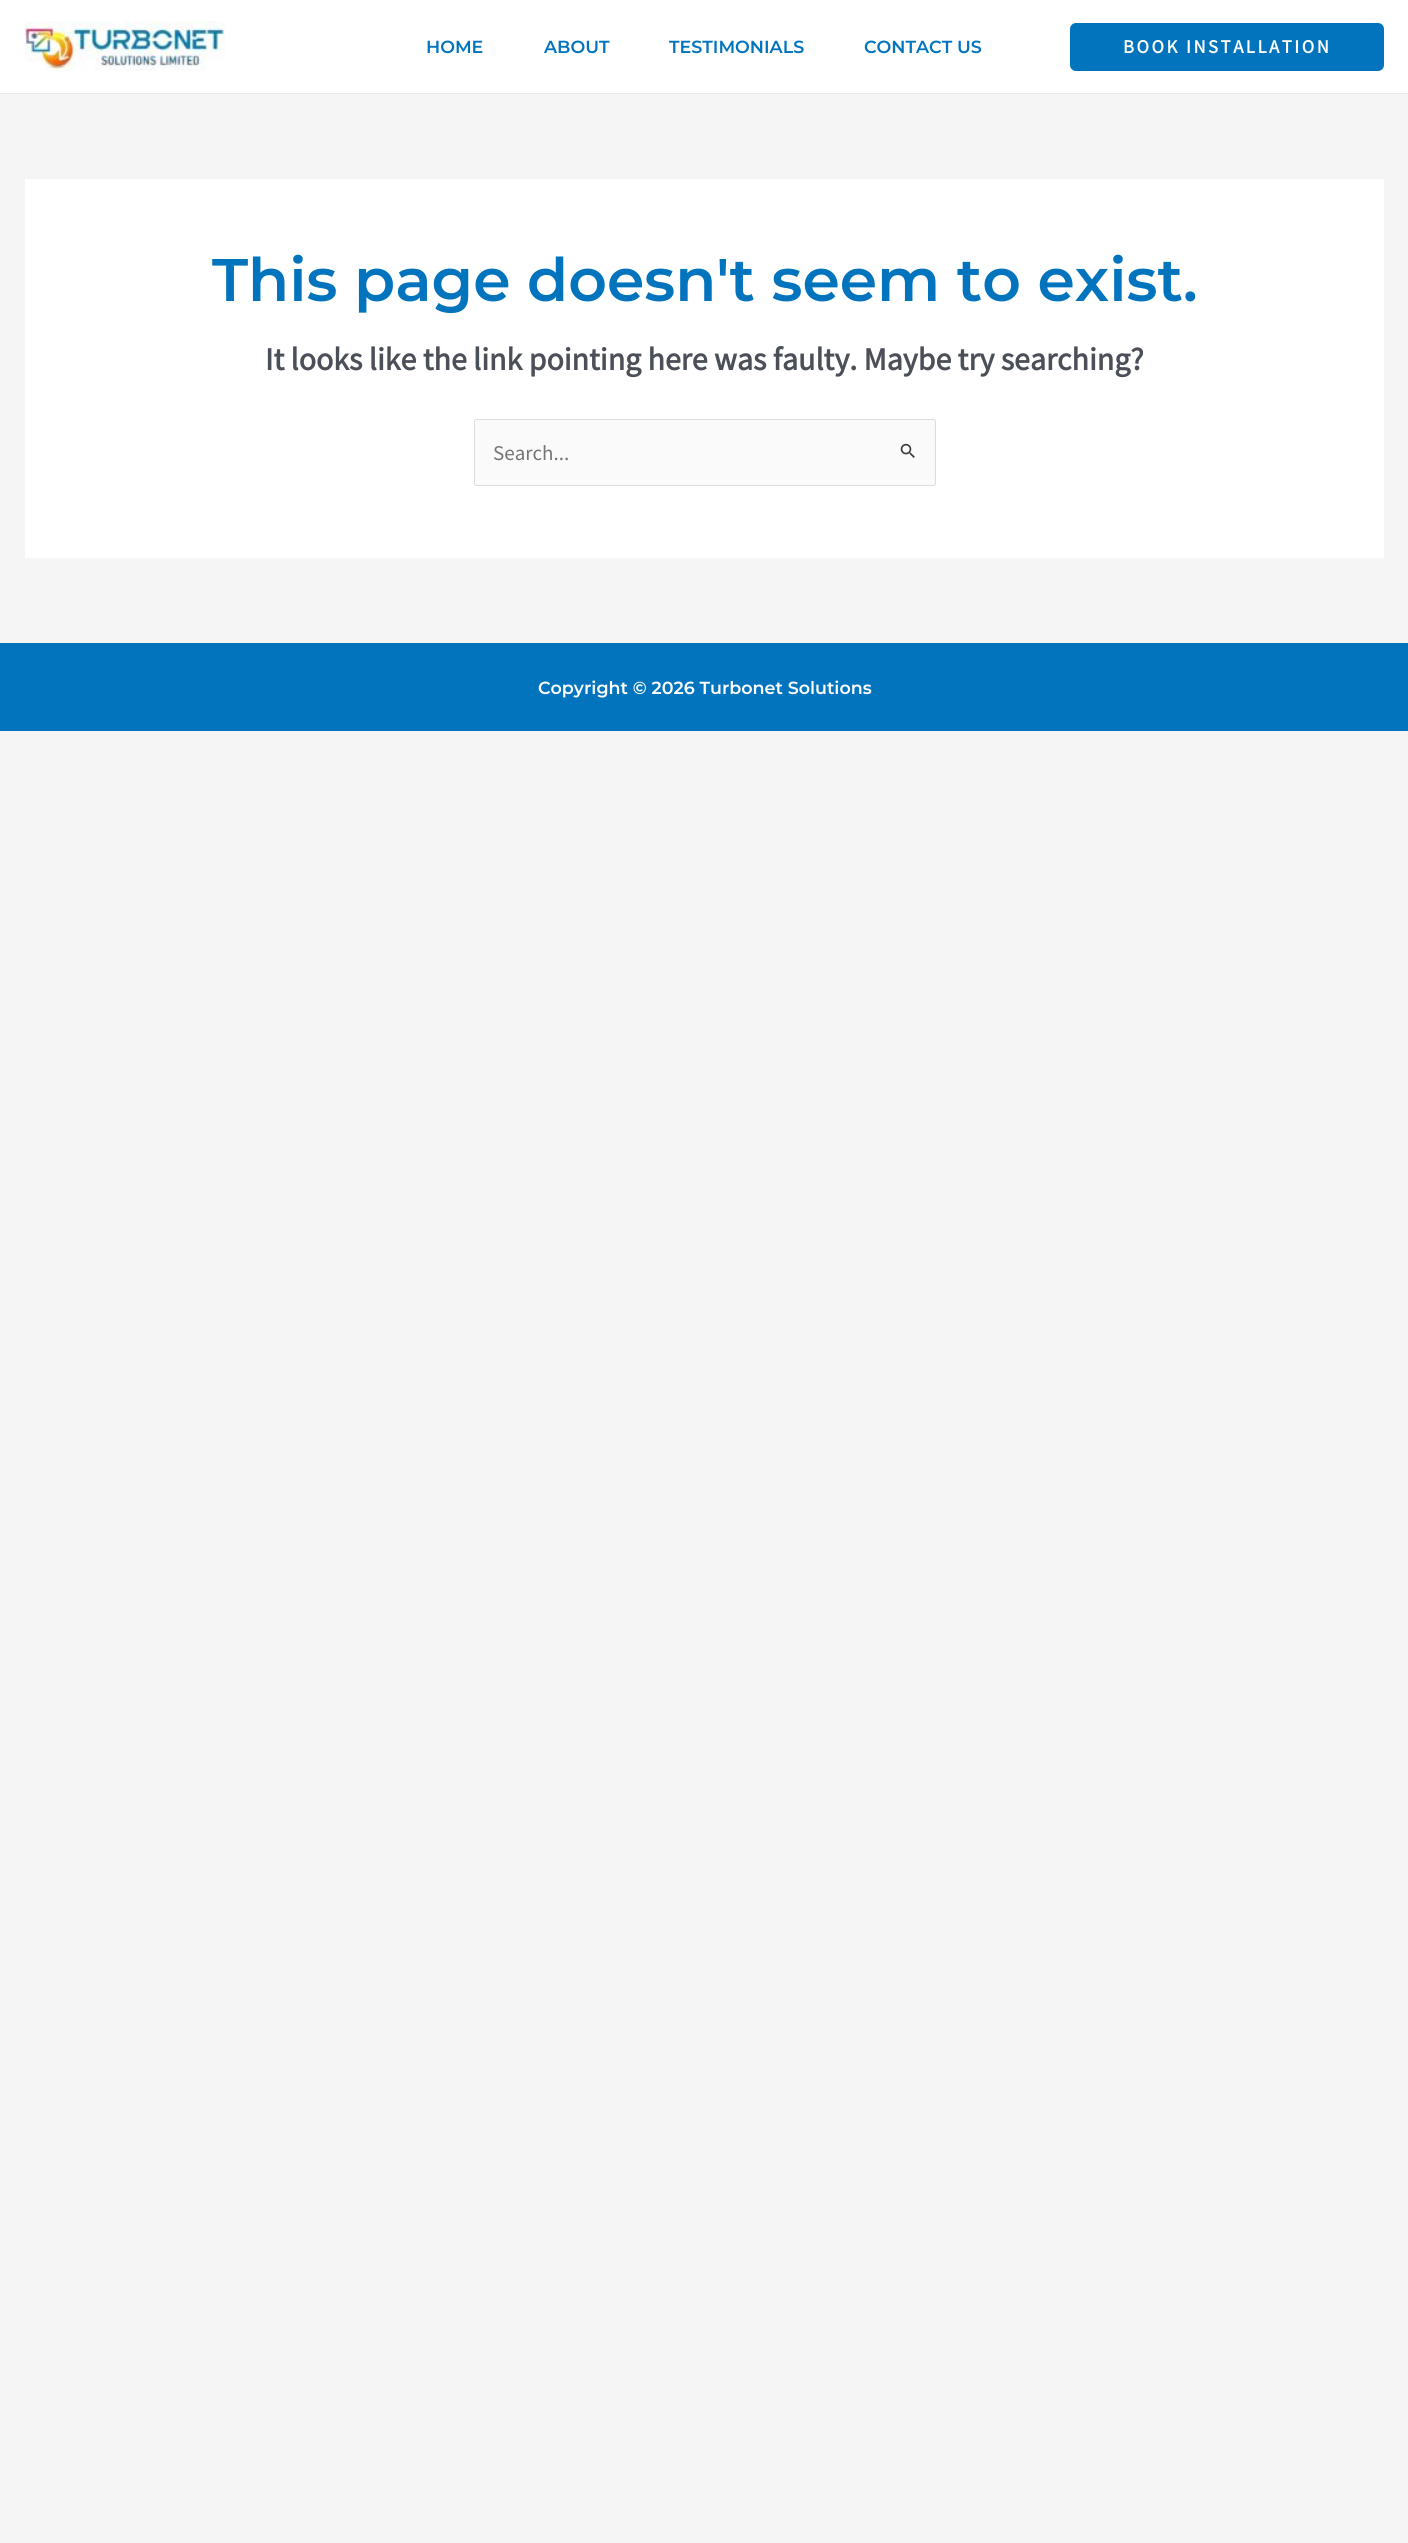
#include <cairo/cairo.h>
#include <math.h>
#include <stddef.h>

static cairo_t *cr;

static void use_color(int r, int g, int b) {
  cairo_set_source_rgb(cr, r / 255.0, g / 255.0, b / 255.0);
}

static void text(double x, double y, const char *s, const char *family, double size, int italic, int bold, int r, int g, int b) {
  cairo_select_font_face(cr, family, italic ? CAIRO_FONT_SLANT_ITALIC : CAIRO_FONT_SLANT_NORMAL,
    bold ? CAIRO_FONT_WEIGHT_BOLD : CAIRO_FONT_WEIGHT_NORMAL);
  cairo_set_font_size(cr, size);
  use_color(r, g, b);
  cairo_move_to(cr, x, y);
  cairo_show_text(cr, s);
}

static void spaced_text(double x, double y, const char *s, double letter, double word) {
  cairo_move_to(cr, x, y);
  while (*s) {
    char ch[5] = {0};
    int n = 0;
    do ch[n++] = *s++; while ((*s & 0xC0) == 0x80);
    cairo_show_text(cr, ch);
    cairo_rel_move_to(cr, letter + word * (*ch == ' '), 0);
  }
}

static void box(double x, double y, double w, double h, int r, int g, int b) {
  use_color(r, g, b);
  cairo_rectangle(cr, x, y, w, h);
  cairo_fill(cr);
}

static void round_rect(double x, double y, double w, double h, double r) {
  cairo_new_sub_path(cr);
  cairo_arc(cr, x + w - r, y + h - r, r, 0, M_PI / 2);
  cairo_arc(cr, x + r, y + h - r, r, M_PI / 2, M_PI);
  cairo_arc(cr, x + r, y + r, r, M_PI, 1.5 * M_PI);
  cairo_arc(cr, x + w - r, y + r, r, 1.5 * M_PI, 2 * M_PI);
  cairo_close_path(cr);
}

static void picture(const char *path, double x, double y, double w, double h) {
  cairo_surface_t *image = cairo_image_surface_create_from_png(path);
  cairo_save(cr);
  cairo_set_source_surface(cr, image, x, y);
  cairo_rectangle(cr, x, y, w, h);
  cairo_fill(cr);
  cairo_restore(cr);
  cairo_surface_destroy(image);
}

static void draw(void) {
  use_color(245, 245, 245);
  cairo_paint(cr);
  box(0, 0, 1408, 93, 255, 255, 255);
  box(0, 93, 1408, 1, 234, 234, 234);
  picture("img_01.png", 25, 21, 200, 50);
  use_color(2, 116, 190);
  round_rect(1071.5, 24.5, 311, 45, 4.5);
  cairo_fill_preserve(cr);
  cairo_set_line_width(cr, 3);
  cairo_stroke(cr);
  box(25, 179, 1359, 379, 255, 255, 255);
  use_color(250, 250, 250);
  round_rect(474.5, 419.5, 461, 66, 2);
  cairo_fill_preserve(cr);
  use_color(221, 221, 221);
  cairo_set_line_width(cr, 1);
  cairo_stroke(cr);
  picture("img_02.png", 900, 443, 15, 15);
  box(0, 643, 1408, 88, 2, 116, 190);
  text(426, 53, "HOME", "Montserrat SemiBold", 17.5, 0, 0, 2, 116, 190);
  text(544, 53, "ABOUT", "Montserrat SemiBold", 17.5, 0, 0, 2, 116, 190);
  text(669, 53, "TESTIMONIALS", "Montserrat SemiBold", 17.5, 0, 0, 2, 116, 190);
  text(864, 53, "CONTACT US", "Montserrat SemiBold", 17.5, 0, 0, 2, 116, 190);
  cairo_select_font_face(cr, "Source Sans Pro", CAIRO_FONT_SLANT_NORMAL, CAIRO_FONT_WEIGHT_BOLD);
  cairo_set_font_size(cr, 18.75);
  use_color(255, 255, 255);
  spaced_text(1123, 53, "BOOK INSTALLATION", 2.5, 0);
  text(212, 301, "This page doesn't seem to exist.", "Montserrat SemiBold", 60, 0, 0, 2, 116, 190);
  text(265, 370, "It looks like the link pointing here was faulty. Maybe try searching?", "Source Sans Pro", 31.9, 0, 1, 75, 79, 88);
  text(493, 460, "Search...", "Source Sans Pro", 21, 0, 0, 117, 117, 117);
  text(538, 694, "Copyright © 2026 Turbonet Solutions", "Montserrat SemiBold", 17.5, 0, 0, 255, 255, 255);
}

int main(void) {
  cairo_surface_t *surface = cairo_image_surface_create(CAIRO_FORMAT_RGB24, 1408, 2543);
  cr = cairo_create(surface);
  cairo_font_options_t *options = cairo_font_options_create();
  cairo_font_options_set_hint_metrics(options, CAIRO_HINT_METRICS_OFF);
  cairo_font_options_set_hint_style(options, CAIRO_HINT_STYLE_NONE);
  cairo_set_font_options(cr, options);
  cairo_set_miter_limit(cr, 4);
  draw();
  cairo_surface_write_to_png(surface, "out.png");
  cairo_font_options_destroy(options);
  cairo_destroy(cr);
  cairo_surface_destroy(surface);
  return 0;
}
